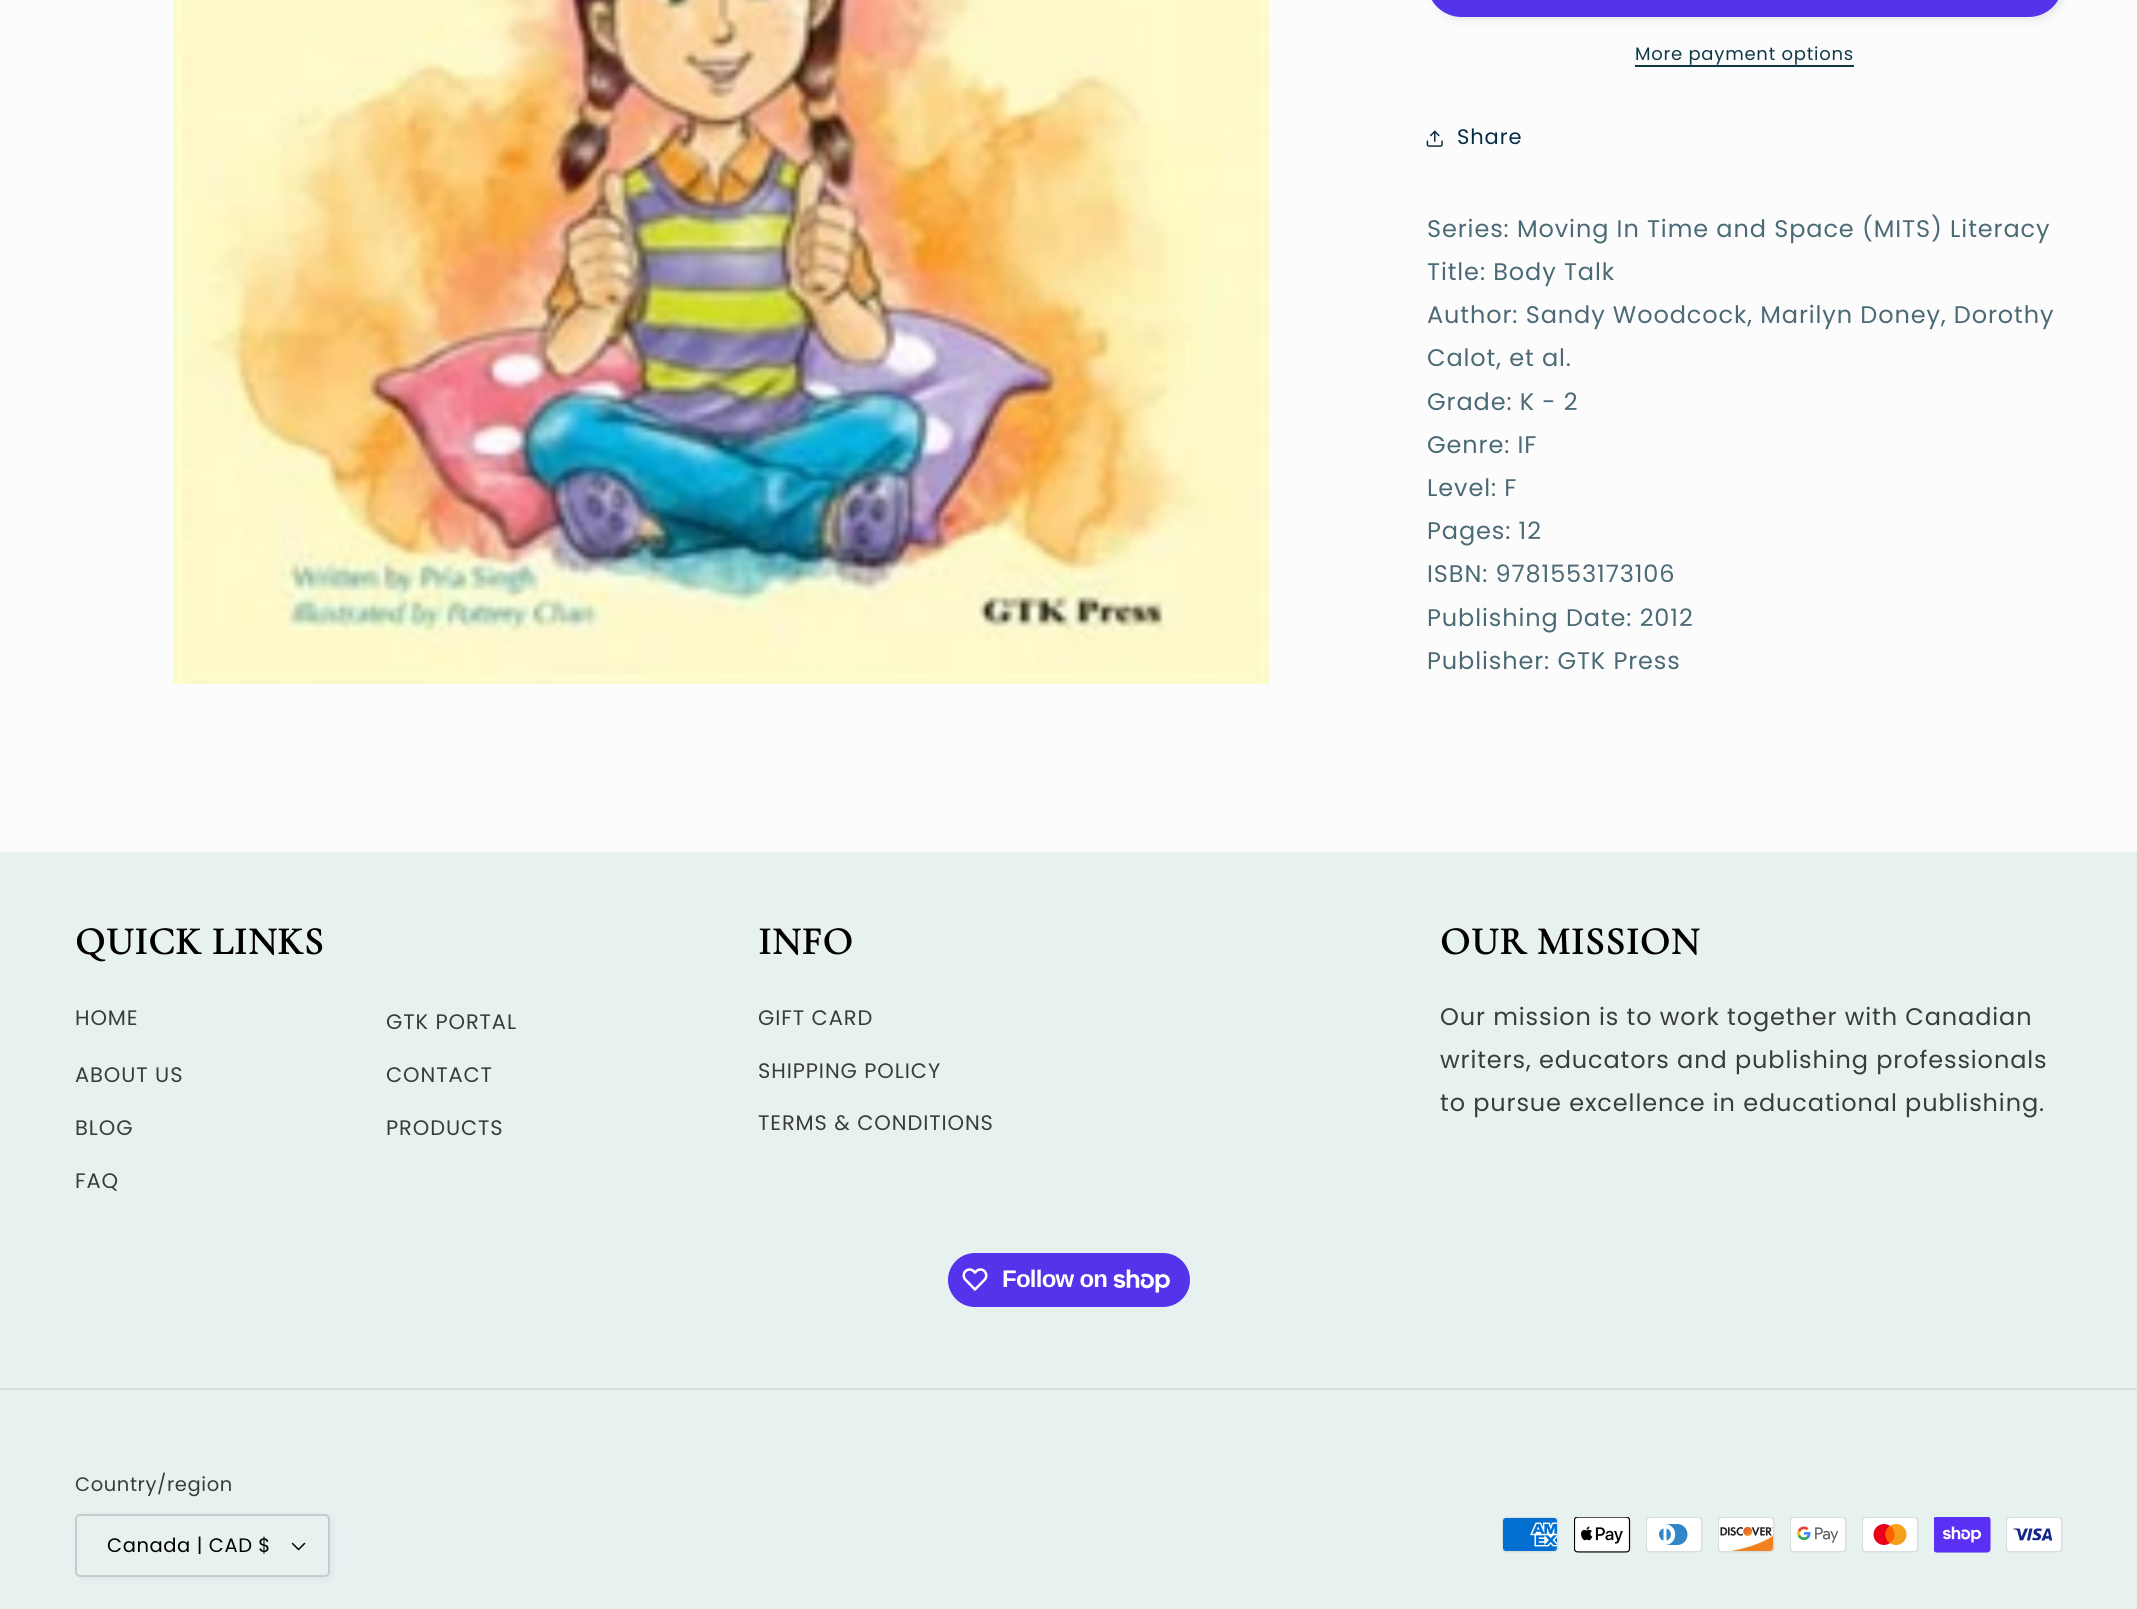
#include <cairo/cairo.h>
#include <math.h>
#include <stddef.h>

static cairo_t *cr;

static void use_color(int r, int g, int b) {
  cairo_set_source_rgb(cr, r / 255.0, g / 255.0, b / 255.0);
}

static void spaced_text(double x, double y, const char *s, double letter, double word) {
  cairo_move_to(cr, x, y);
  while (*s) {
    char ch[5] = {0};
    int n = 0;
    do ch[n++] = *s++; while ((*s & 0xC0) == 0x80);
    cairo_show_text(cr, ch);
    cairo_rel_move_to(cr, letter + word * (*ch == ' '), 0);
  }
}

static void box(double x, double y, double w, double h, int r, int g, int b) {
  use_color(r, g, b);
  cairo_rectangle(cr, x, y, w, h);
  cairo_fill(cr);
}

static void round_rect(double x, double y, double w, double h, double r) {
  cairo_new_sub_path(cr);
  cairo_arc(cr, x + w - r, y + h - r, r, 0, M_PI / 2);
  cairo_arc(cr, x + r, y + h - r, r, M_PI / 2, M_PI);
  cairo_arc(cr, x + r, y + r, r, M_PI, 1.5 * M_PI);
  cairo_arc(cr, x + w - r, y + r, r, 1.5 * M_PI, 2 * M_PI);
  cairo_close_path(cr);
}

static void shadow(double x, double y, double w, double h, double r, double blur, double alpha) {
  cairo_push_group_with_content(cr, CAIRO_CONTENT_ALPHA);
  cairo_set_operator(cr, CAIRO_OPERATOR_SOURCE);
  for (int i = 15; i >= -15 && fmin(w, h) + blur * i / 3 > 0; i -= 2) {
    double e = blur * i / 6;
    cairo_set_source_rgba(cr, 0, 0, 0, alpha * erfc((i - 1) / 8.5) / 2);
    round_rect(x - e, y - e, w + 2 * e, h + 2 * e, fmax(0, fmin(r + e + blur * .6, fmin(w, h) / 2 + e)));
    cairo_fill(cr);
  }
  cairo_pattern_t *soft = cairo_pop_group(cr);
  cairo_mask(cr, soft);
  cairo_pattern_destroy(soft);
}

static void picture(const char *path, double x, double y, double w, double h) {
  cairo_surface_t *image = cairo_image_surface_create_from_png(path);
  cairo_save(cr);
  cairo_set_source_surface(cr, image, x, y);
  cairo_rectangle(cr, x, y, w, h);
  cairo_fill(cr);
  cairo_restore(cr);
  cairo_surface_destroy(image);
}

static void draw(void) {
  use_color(252, 252, 252);
  cairo_paint(cr);
  picture("img_01.png", 173, 0, 1096, 684);
  use_color(16, 57, 72);
  shadow(1430, -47, 636, 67, 34.5, 4, 0.1);
  use_color(84, 51, 235);
  round_rect(1427, -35, 636, 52, 34.5);
  cairo_fill(cr);
  box(1635, 65, 219, 2, 16, 57, 72);
  picture("img_02.png", 1426, 130, 17, 17);
  box(0, 852, 2137, 757, 231, 241, 240);
  use_color(84, 51, 235);
  round_rect(948, 1253, 242, 54, 27);
  cairo_fill(cr);
  picture("img_03.png", 962, 1268, 26, 23);
  picture("img_04.png", 1113, 1269, 57, 24);
  box(0, 1388, 2137, 2, 213, 222, 221);
  use_color(16, 57, 72);
  shadow(78, 1517, 255, 63, 5, 4, 0.05);
  use_color(231, 241, 240);
  round_rect(75, 1514, 255, 63, 5);
  cairo_fill(cr);
  picture("img_05.png", 291, 1542, 15, 9);
  round_rect(76, 1515, 253, 61, 4);
  cairo_set_source_rgba(cr, 0, 0, 0, 0.15);
  cairo_stroke(cr);
  picture("img_06.png", 1502, 1517, 57, 36);
  picture("img_07.png", 1574, 1517, 57, 36);
  picture("img_08.png", 1646, 1517, 57, 36);
  picture("img_09.png", 1718, 1517, 57, 36);
  picture("img_10.png", 1790, 1517, 57, 36);
  picture("img_11.png", 1862, 1517, 57, 36);
  picture("img_12.png", 1934, 1517, 57, 36);
  picture("img_13.png", 2006, 1517, 57, 36);
  cairo_select_font_face(cr, "Poppins", CAIRO_FONT_SLANT_NORMAL, CAIRO_FONT_WEIGHT_NORMAL);
  cairo_set_font_size(cr, 18);
  use_color(16, 57, 72);
  spaced_text(1635, 60, "More payment options", 0.75, 0);
  cairo_set_font_size(cr, 21);
  use_color(5, 44, 70);
  spaced_text(1457, 144, "Share", 0.9, 0);
  cairo_set_font_size(cr, 24);
  use_color(75, 106, 117);
  spaced_text(1427, 237, "Series: Moving In Time and Space (MITS) Literacy", 0.9, 0);
  spaced_text(1427, 280, "Title: Body Talk", 0.9, 0);
  spaced_text(1427, 323, "Author: Sandy Woodcock, Marilyn Doney, Dorothy", 0.9, 0);
  spaced_text(1427, 366, "Calot, et al.", 0.9, 0);
  spaced_text(1427, 410, "Grade: K - 2", 0.9, 0);
  spaced_text(1427, 453, "Genre: IF", 0.9, 0);
  spaced_text(1427, 496, "Level: F", 0.9, 0);
  spaced_text(1427, 539, "Pages: 12", 0.9, 0);
  spaced_text(1427, 582, "ISBN: 9781553173106", 0.9, 0);
  spaced_text(1427, 626, "Publishing Date: 2012", 0.9, 0);
  spaced_text(1427, 669, "Publisher: GTK Press", 0.9, 0);
  cairo_select_font_face(cr, "Cormorant", CAIRO_FONT_SLANT_NORMAL, CAIRO_FONT_WEIGHT_BOLD);
  cairo_set_font_size(cr, 39);
  use_color(0, 0, 0);
  spaced_text(75, 954, "QUICK LINKS", 1, 0);
  cairo_select_font_face(cr, "Poppins", CAIRO_FONT_SLANT_NORMAL, CAIRO_FONT_WEIGHT_NORMAL);
  cairo_set_font_size(cr, 21);
  use_color(58, 60, 60);
  spaced_text(75, 1025, "HOME", 0.9, 0);
  spaced_text(386, 1029, "GTK PORTAL", 0.9, 0);
  spaced_text(75, 1082, "ABOUT US", 0.9, 0);
  spaced_text(386, 1082, "CONTACT", 0.9, 0);
  spaced_text(75, 1135, "BLOG", 0.9, 0);
  spaced_text(386, 1135, "PRODUCTS", 0.9, 0);
  spaced_text(75, 1188, "FAQ", 0.9, 0);
  cairo_select_font_face(cr, "Cormorant", CAIRO_FONT_SLANT_NORMAL, CAIRO_FONT_WEIGHT_BOLD);
  cairo_set_font_size(cr, 39);
  use_color(0, 0, 0);
  spaced_text(758, 954, "INFO", 1, 0);
  cairo_select_font_face(cr, "Poppins", CAIRO_FONT_SLANT_NORMAL, CAIRO_FONT_WEIGHT_NORMAL);
  cairo_set_font_size(cr, 21);
  use_color(58, 60, 60);
  spaced_text(758, 1025, "GIFT CARD", 0.9, 0);
  spaced_text(758, 1078, "SHIPPING POLICY", 0.9, 0);
  spaced_text(758, 1130, "TERMS & CONDITIONS", 0.9, 0);
  cairo_select_font_face(cr, "Cormorant", CAIRO_FONT_SLANT_NORMAL, CAIRO_FONT_WEIGHT_BOLD);
  cairo_set_font_size(cr, 39);
  use_color(0, 0, 0);
  spaced_text(1440, 954, "OUR MISSION", 1, 0);
  cairo_select_font_face(cr, "Poppins", CAIRO_FONT_SLANT_NORMAL, CAIRO_FONT_WEIGHT_NORMAL);
  cairo_set_font_size(cr, 24);
  use_color(58, 60, 60);
  spaced_text(1440, 1025, "Our mission is to work together with Canadian", 0.9, 0);
  spaced_text(1440, 1068, "writers, educators and publishing professionals", 0.9, 0);
  spaced_text(1440, 1111, "to pursue excellence in educational publishing.", 0.9, 0);
  cairo_select_font_face(cr, "Liberation Sans", CAIRO_FONT_SLANT_NORMAL, CAIRO_FONT_WEIGHT_BOLD);
  use_color(255, 255, 255);
  spaced_text(1002, 1287, "Follow on", -0.75, 0);
  cairo_select_font_face(cr, "Poppins", CAIRO_FONT_SLANT_NORMAL, CAIRO_FONT_WEIGHT_NORMAL);
  cairo_set_font_size(cr, 19.5);
  use_color(58, 60, 60);
  spaced_text(75, 1491, "Country/region", 0.6, 0);
  use_color(0, 0, 0);
  spaced_text(107, 1552, "Canada | CAD $", 0.6, 0);
}

int main(void) {
  cairo_surface_t *surface = cairo_image_surface_create(CAIRO_FORMAT_RGB24, 2137, 1609);
  cr = cairo_create(surface);
  cairo_font_options_t *options = cairo_font_options_create();
  cairo_font_options_set_hint_metrics(options, CAIRO_HINT_METRICS_OFF);
  cairo_font_options_set_hint_style(options, CAIRO_HINT_STYLE_NONE);
  cairo_set_font_options(cr, options);
  cairo_set_miter_limit(cr, 4);
  draw();
  cairo_surface_write_to_png(surface, "out.png");
  cairo_font_options_destroy(options);
  cairo_destroy(cr);
  cairo_surface_destroy(surface);
  return 0;
}
